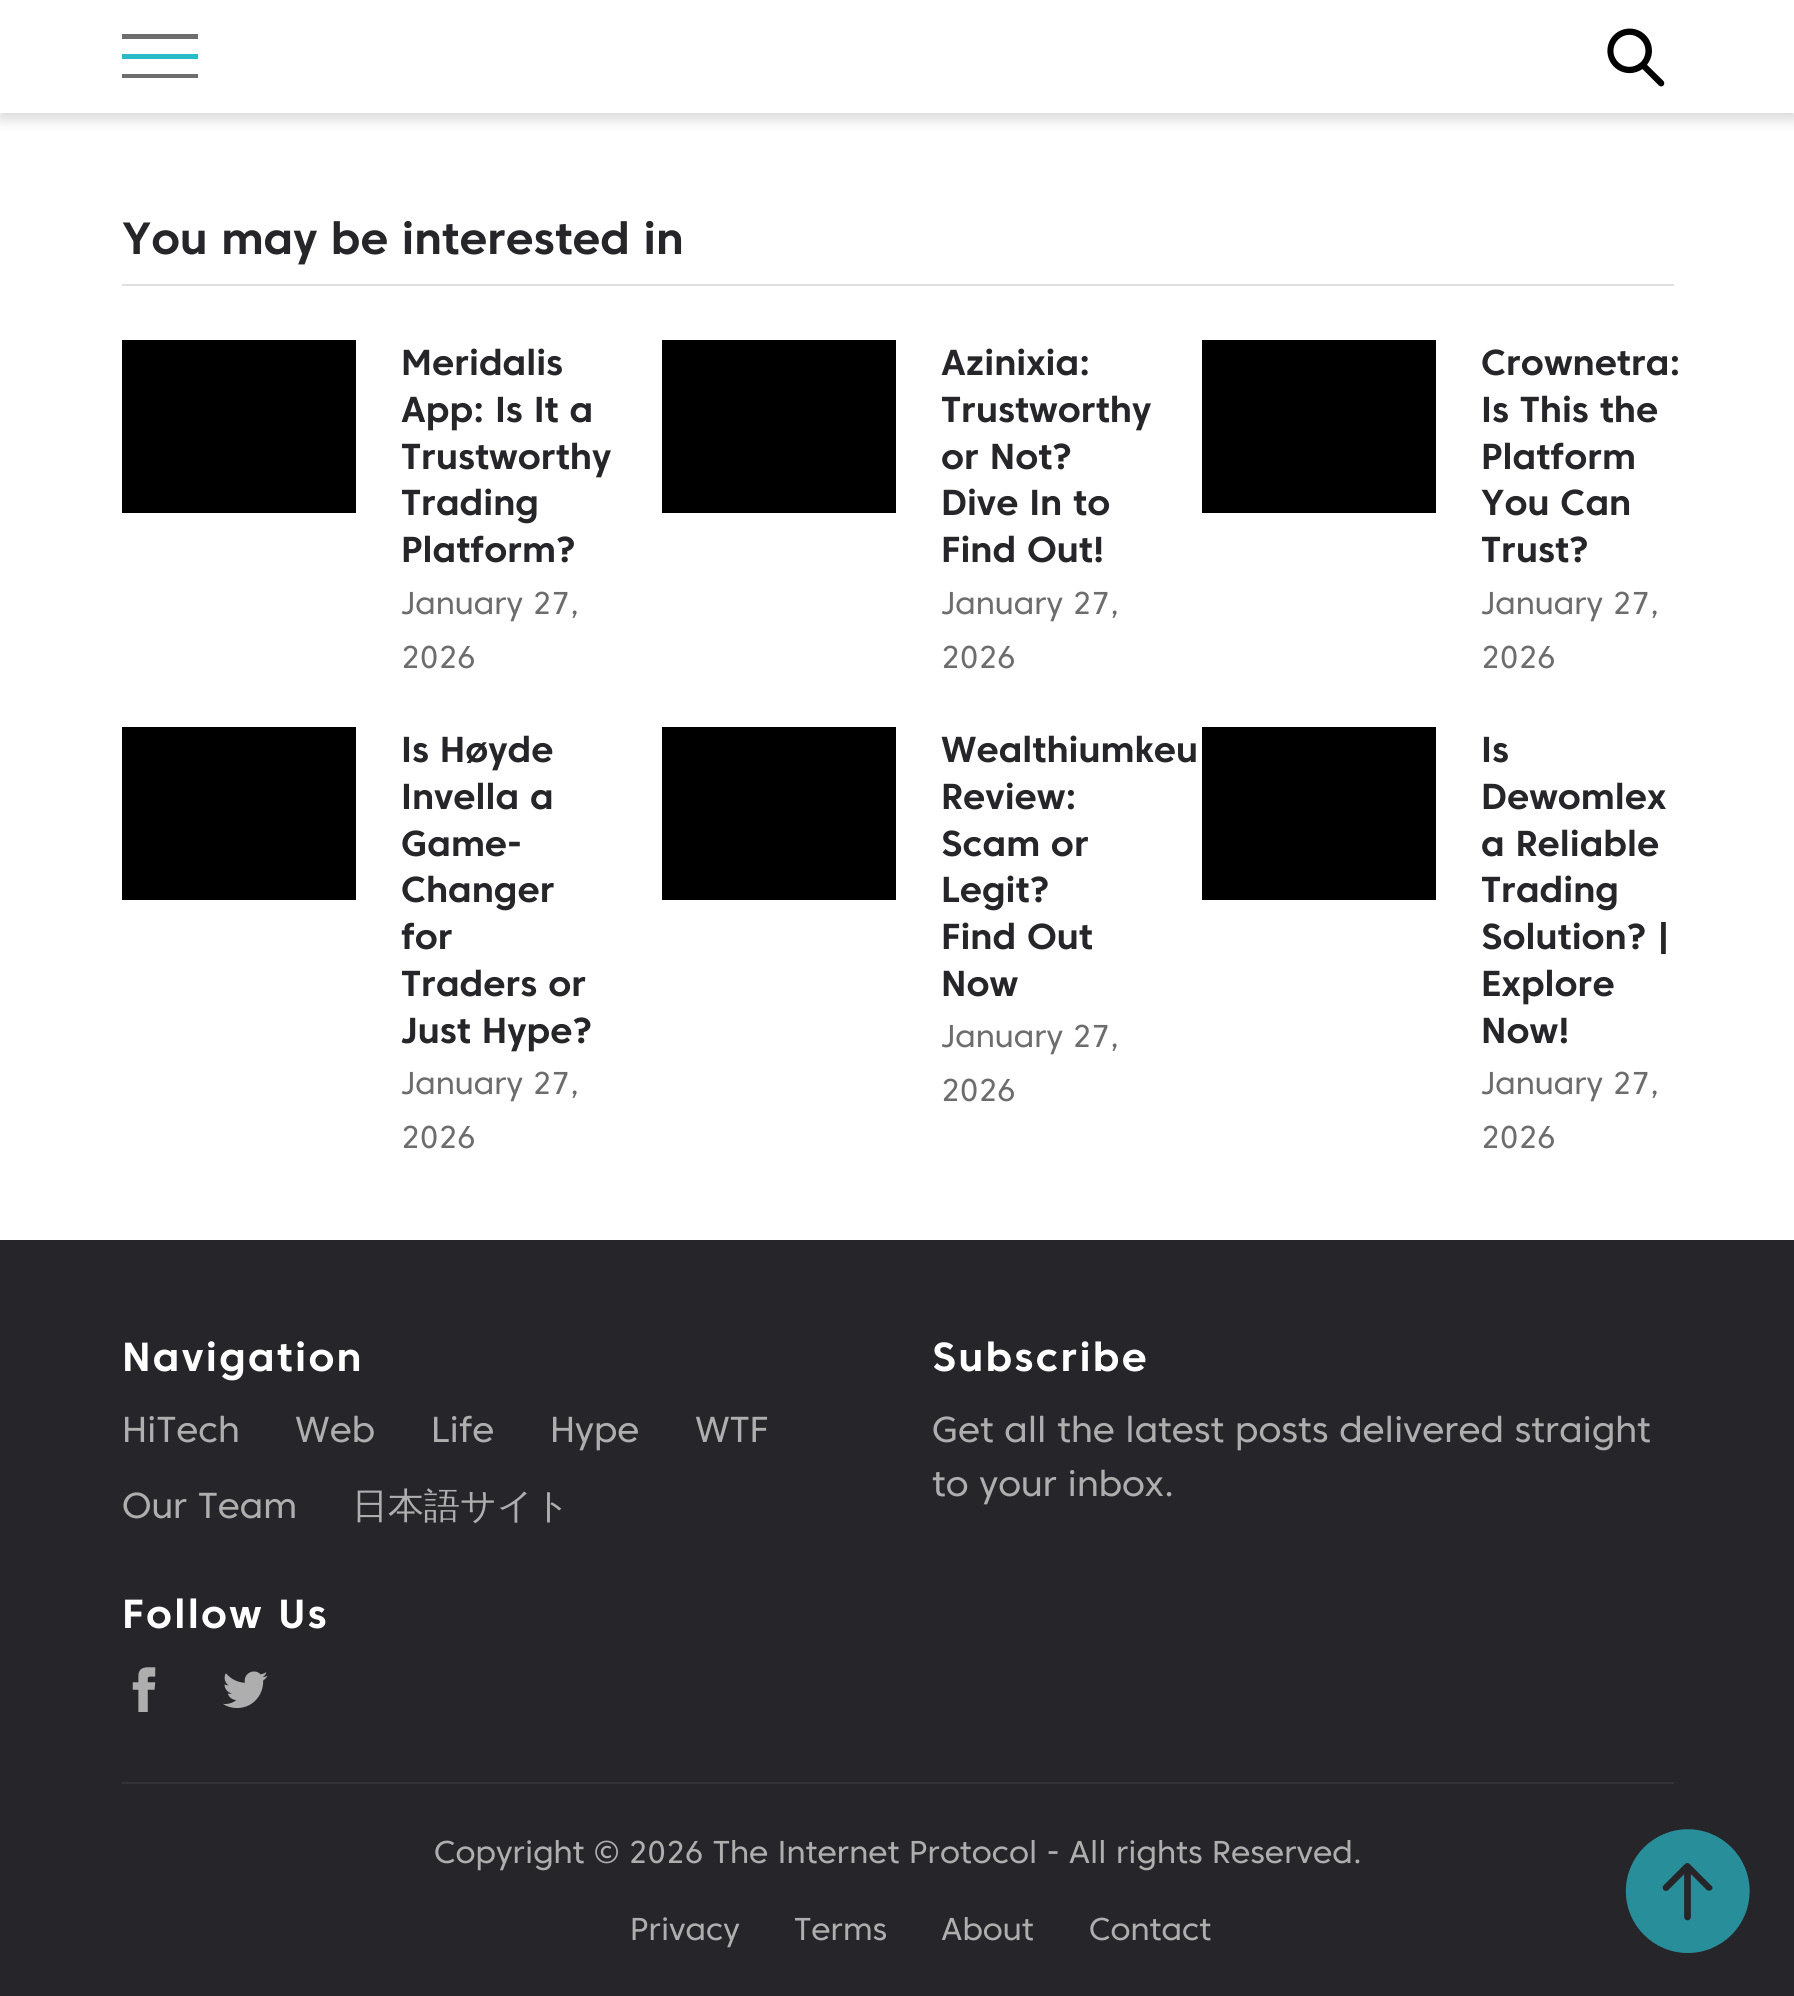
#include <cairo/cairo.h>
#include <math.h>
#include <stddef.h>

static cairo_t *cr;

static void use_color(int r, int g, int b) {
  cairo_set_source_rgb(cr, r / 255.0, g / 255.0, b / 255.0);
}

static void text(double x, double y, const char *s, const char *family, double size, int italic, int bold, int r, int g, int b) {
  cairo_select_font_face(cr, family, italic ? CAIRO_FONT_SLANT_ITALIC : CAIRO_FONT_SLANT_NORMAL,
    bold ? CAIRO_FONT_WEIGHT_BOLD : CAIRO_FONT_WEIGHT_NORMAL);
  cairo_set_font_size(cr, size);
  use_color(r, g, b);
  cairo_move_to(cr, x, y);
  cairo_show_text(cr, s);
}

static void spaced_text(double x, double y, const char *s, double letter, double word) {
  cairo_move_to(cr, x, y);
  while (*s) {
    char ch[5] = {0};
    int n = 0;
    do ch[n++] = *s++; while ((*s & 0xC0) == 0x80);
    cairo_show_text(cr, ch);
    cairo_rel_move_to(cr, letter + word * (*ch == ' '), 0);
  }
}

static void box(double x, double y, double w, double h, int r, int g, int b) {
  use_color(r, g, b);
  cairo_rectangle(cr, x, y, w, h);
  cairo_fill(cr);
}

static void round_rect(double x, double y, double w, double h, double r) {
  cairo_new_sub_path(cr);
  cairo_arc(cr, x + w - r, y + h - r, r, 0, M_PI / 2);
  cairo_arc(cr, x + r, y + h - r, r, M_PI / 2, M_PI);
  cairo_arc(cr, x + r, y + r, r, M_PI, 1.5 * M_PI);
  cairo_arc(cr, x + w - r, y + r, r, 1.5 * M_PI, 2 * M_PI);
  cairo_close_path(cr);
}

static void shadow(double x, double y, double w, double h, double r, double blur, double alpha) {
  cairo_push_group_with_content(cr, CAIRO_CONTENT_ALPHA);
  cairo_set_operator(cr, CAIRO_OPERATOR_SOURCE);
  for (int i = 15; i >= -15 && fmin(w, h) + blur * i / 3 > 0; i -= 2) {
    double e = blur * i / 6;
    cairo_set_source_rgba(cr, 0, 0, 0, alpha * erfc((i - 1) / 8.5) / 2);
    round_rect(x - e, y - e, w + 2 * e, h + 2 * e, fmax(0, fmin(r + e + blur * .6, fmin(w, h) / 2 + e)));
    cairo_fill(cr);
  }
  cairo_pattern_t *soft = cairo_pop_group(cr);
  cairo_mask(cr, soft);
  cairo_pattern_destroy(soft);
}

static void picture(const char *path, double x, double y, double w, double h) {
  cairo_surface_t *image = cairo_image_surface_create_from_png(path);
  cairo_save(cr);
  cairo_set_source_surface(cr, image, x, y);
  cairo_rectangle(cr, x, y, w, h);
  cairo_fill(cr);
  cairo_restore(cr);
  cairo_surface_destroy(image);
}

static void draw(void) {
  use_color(255, 255, 255);
  cairo_paint(cr);
  cairo_save(cr);
  cairo_set_fill_rule(cr, CAIRO_FILL_RULE_EVEN_ODD);
  cairo_new_path(cr);
  cairo_move_to(cr, 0, 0);
  cairo_line_to(cr, 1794, 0);
  cairo_line_to(cr, 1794, 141);
  cairo_line_to(cr, 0, 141);
  cairo_close_path(cr);
  cairo_move_to(cr, 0, 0);
  cairo_line_to(cr, 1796, 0);
  cairo_line_to(cr, 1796, 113);
  cairo_line_to(cr, 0, 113);
  cairo_close_path(cr);
  cairo_clip(cr);
  use_color(0, 0, 0);
  shadow(0, 7, 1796, 112, 0, 7, 0.16);
  cairo_restore(cr);
  box(122, 34, 76, 5, 109, 109, 109);
  box(122, 54, 76, 5, 42, 187, 201);
  box(122, 74, 76, 4, 109, 109, 109);
  picture("img_01.png", 1607, 28, 58, 59);
  box(122, 284, 1552, 2, 224, 224, 224);
  box(122, 340, 234, 173, 0, 0, 0);
  box(662, 340, 234, 173, 0, 0, 0);
  box(1202, 340, 234, 173, 0, 0, 0);
  box(122, 727, 234, 173, 0, 0, 0);
  box(662, 727, 234, 173, 0, 0, 0);
  box(1202, 727, 234, 173, 0, 0, 0);
  box(0, 1240, 1794, 756, 38, 38, 42);
  picture("img_02.png", 132, 1667, 24, 45);
  picture("img_03.png", 223, 1671, 45, 37);
  box(122, 1782, 1552, 2, 50, 50, 55);
  picture("img_04.png", 1625, 1829, 125, 124);
  text(122, 254, "You may be interested in", "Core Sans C", 45, 0, 1, 38, 38, 42);
  text(401, 375, "Meridalis", "Core Sans C", 36, 0, 1, 38, 38, 42);
  text(401, 422, "App: Is It a", "Core Sans C", 36, 0, 1, 38, 38, 42);
  text(401, 469, "Trustworthy", "Core Sans C", 36, 0, 1, 38, 38, 42);
  text(401, 515, "Trading", "Core Sans C", 36, 0, 1, 38, 38, 42);
  text(401, 562, "Platform?", "Core Sans C", 36, 0, 1, 38, 38, 42);
  text(401, 614, "January 27,", "Core Sans C", 31.5, 0, 0, 109, 109, 109);
  text(401, 668, "2026", "Core Sans C", 31.5, 0, 0, 109, 109, 109);
  text(941, 375, "Azinixia:", "Core Sans C", 36, 0, 1, 38, 38, 42);
  text(941, 422, "Trustworthy", "Core Sans C", 36, 0, 1, 38, 38, 42);
  text(941, 469, "or Not?", "Core Sans C", 36, 0, 1, 38, 38, 42);
  text(941, 515, "Dive In to", "Core Sans C", 36, 0, 1, 38, 38, 42);
  text(941, 562, "Find Out!", "Core Sans C", 36, 0, 1, 38, 38, 42);
  text(941, 614, "January 27,", "Core Sans C", 31.5, 0, 0, 109, 109, 109);
  text(941, 668, "2026", "Core Sans C", 31.5, 0, 0, 109, 109, 109);
  text(1481, 375, "Crownetra:", "Core Sans C", 36, 0, 1, 38, 38, 42);
  text(1481, 422, "Is This the", "Core Sans C", 36, 0, 1, 38, 38, 42);
  text(1481, 469, "Platform", "Core Sans C", 36, 0, 1, 38, 38, 42);
  text(1481, 515, "You Can", "Core Sans C", 36, 0, 1, 38, 38, 42);
  text(1481, 562, "Trust?", "Core Sans C", 36, 0, 1, 38, 38, 42);
  text(1481, 614, "January 27,", "Core Sans C", 31.5, 0, 0, 109, 109, 109);
  text(1481, 668, "2026", "Core Sans C", 31.5, 0, 0, 109, 109, 109);
  text(401, 762, "Is Høyde", "Core Sans C", 36, 0, 1, 38, 38, 42);
  text(401, 809, "Invella a", "Core Sans C", 36, 0, 1, 38, 38, 42);
  text(401, 856, "Game-", "Core Sans C", 36, 0, 1, 38, 38, 42);
  text(401, 902, "Changer", "Core Sans C", 36, 0, 1, 38, 38, 42);
  text(401, 949, "for", "Core Sans C", 36, 0, 1, 38, 38, 42);
  text(401, 996, "Traders or", "Core Sans C", 36, 0, 1, 38, 38, 42);
  text(401, 1043, "Just Hype?", "Core Sans C", 36, 0, 1, 38, 38, 42);
  text(401, 1094, "January 27,", "Core Sans C", 31.5, 0, 0, 109, 109, 109);
  text(401, 1148, "2026", "Core Sans C", 31.5, 0, 0, 109, 109, 109);
  text(941, 762, "Wealthiumkeu", "Core Sans C", 36, 0, 1, 38, 38, 42);
  text(941, 809, "Review:", "Core Sans C", 36, 0, 1, 38, 38, 42);
  text(941, 856, "Scam or", "Core Sans C", 36, 0, 1, 38, 38, 42);
  text(941, 902, "Legit?", "Core Sans C", 36, 0, 1, 38, 38, 42);
  text(941, 949, "Find Out", "Core Sans C", 36, 0, 1, 38, 38, 42);
  text(941, 996, "Now", "Core Sans C", 36, 0, 1, 38, 38, 42);
  text(941, 1047, "January 27,", "Core Sans C", 31.5, 0, 0, 109, 109, 109);
  text(941, 1101, "2026", "Core Sans C", 31.5, 0, 0, 109, 109, 109);
  text(1481, 762, "Is", "Core Sans C", 36, 0, 1, 38, 38, 42);
  text(1481, 809, "Dewomlex", "Core Sans C", 36, 0, 1, 38, 38, 42);
  text(1481, 856, "a Reliable", "Core Sans C", 36, 0, 1, 38, 38, 42);
  text(1481, 902, "Trading", "Core Sans C", 36, 0, 1, 38, 38, 42);
  text(1481, 949, "Solution? |", "Core Sans C", 36, 0, 1, 38, 38, 42);
  text(1481, 996, "Explore", "Core Sans C", 36, 0, 1, 38, 38, 42);
  text(1481, 1043, "Now!", "Core Sans C", 36, 0, 1, 38, 38, 42);
  text(1481, 1094, "January 27,", "Core Sans C", 31.5, 0, 0, 109, 109, 109);
  text(1481, 1148, "2026", "Core Sans C", 31.5, 0, 0, 109, 109, 109);
  cairo_select_font_face(cr, "Core Sans C", CAIRO_FONT_SLANT_NORMAL, CAIRO_FONT_WEIGHT_BOLD);
  cairo_set_font_size(cr, 40.5);
  use_color(255, 255, 255);
  spaced_text(122, 1371, "Navigation", 2.25, 0);
  text(122, 1442, "HiTech", "Core Sans C", 36, 0, 0, 174, 174, 174);
  text(295, 1442, "Web", "Core Sans C", 36, 0, 0, 174, 174, 174);
  text(431, 1442, "Life", "Core Sans C", 36, 0, 0, 174, 174, 174);
  text(550, 1442, "Hype", "Core Sans C", 36, 0, 0, 174, 174, 174);
  text(695, 1442, "WTF", "Core Sans C", 36, 0, 0, 174, 174, 174);
  text(122, 1518, "Our Team", "Core Sans C", 36, 0, 0, 174, 174, 174);
  text(352, 1518, "日本語サイト", "WenQuanYi Zen Hei Medium", 36, 0, 0, 174, 174, 174);
  cairo_select_font_face(cr, "Core Sans C", CAIRO_FONT_SLANT_NORMAL, CAIRO_FONT_WEIGHT_BOLD);
  cairo_set_font_size(cr, 40.5);
  use_color(255, 255, 255);
  spaced_text(122, 1628, "Follow Us", 2.25, 0);
  spaced_text(932, 1371, "Subscribe", 2.25, 0);
  text(932, 1442, "Get all the latest posts delivered straight", "Core Sans C", 36, 0, 0, 174, 174, 174);
  text(932, 1496, "to your inbox.", "Core Sans C", 36, 0, 0, 174, 174, 174);
  text(434, 1863, "Copyright © 2026 The Internet Protocol - All rights Reserved.", "Core Sans C", 31.5, 0, 0, 174, 174, 174);
  text(630, 1940, "Privacy", "Core Sans C", 31.5, 0, 0, 174, 174, 174);
  text(794, 1940, "Terms", "Core Sans C", 31.5, 0, 0, 174, 174, 174);
  text(941, 1940, "About", "Core Sans C", 31.5, 0, 0, 174, 174, 174);
  text(1089, 1940, "Contact", "Core Sans C", 31.5, 0, 0, 174, 174, 174);
}

int main(void) {
  cairo_surface_t *surface = cairo_image_surface_create(CAIRO_FORMAT_RGB24, 1794, 1996);
  cr = cairo_create(surface);
  cairo_font_options_t *options = cairo_font_options_create();
  cairo_font_options_set_hint_metrics(options, CAIRO_HINT_METRICS_OFF);
  cairo_font_options_set_hint_style(options, CAIRO_HINT_STYLE_NONE);
  cairo_set_font_options(cr, options);
  cairo_set_miter_limit(cr, 4);
  draw();
  cairo_surface_write_to_png(surface, "out.png");
  cairo_font_options_destroy(options);
  cairo_destroy(cr);
  cairo_surface_destroy(surface);
  return 0;
}
